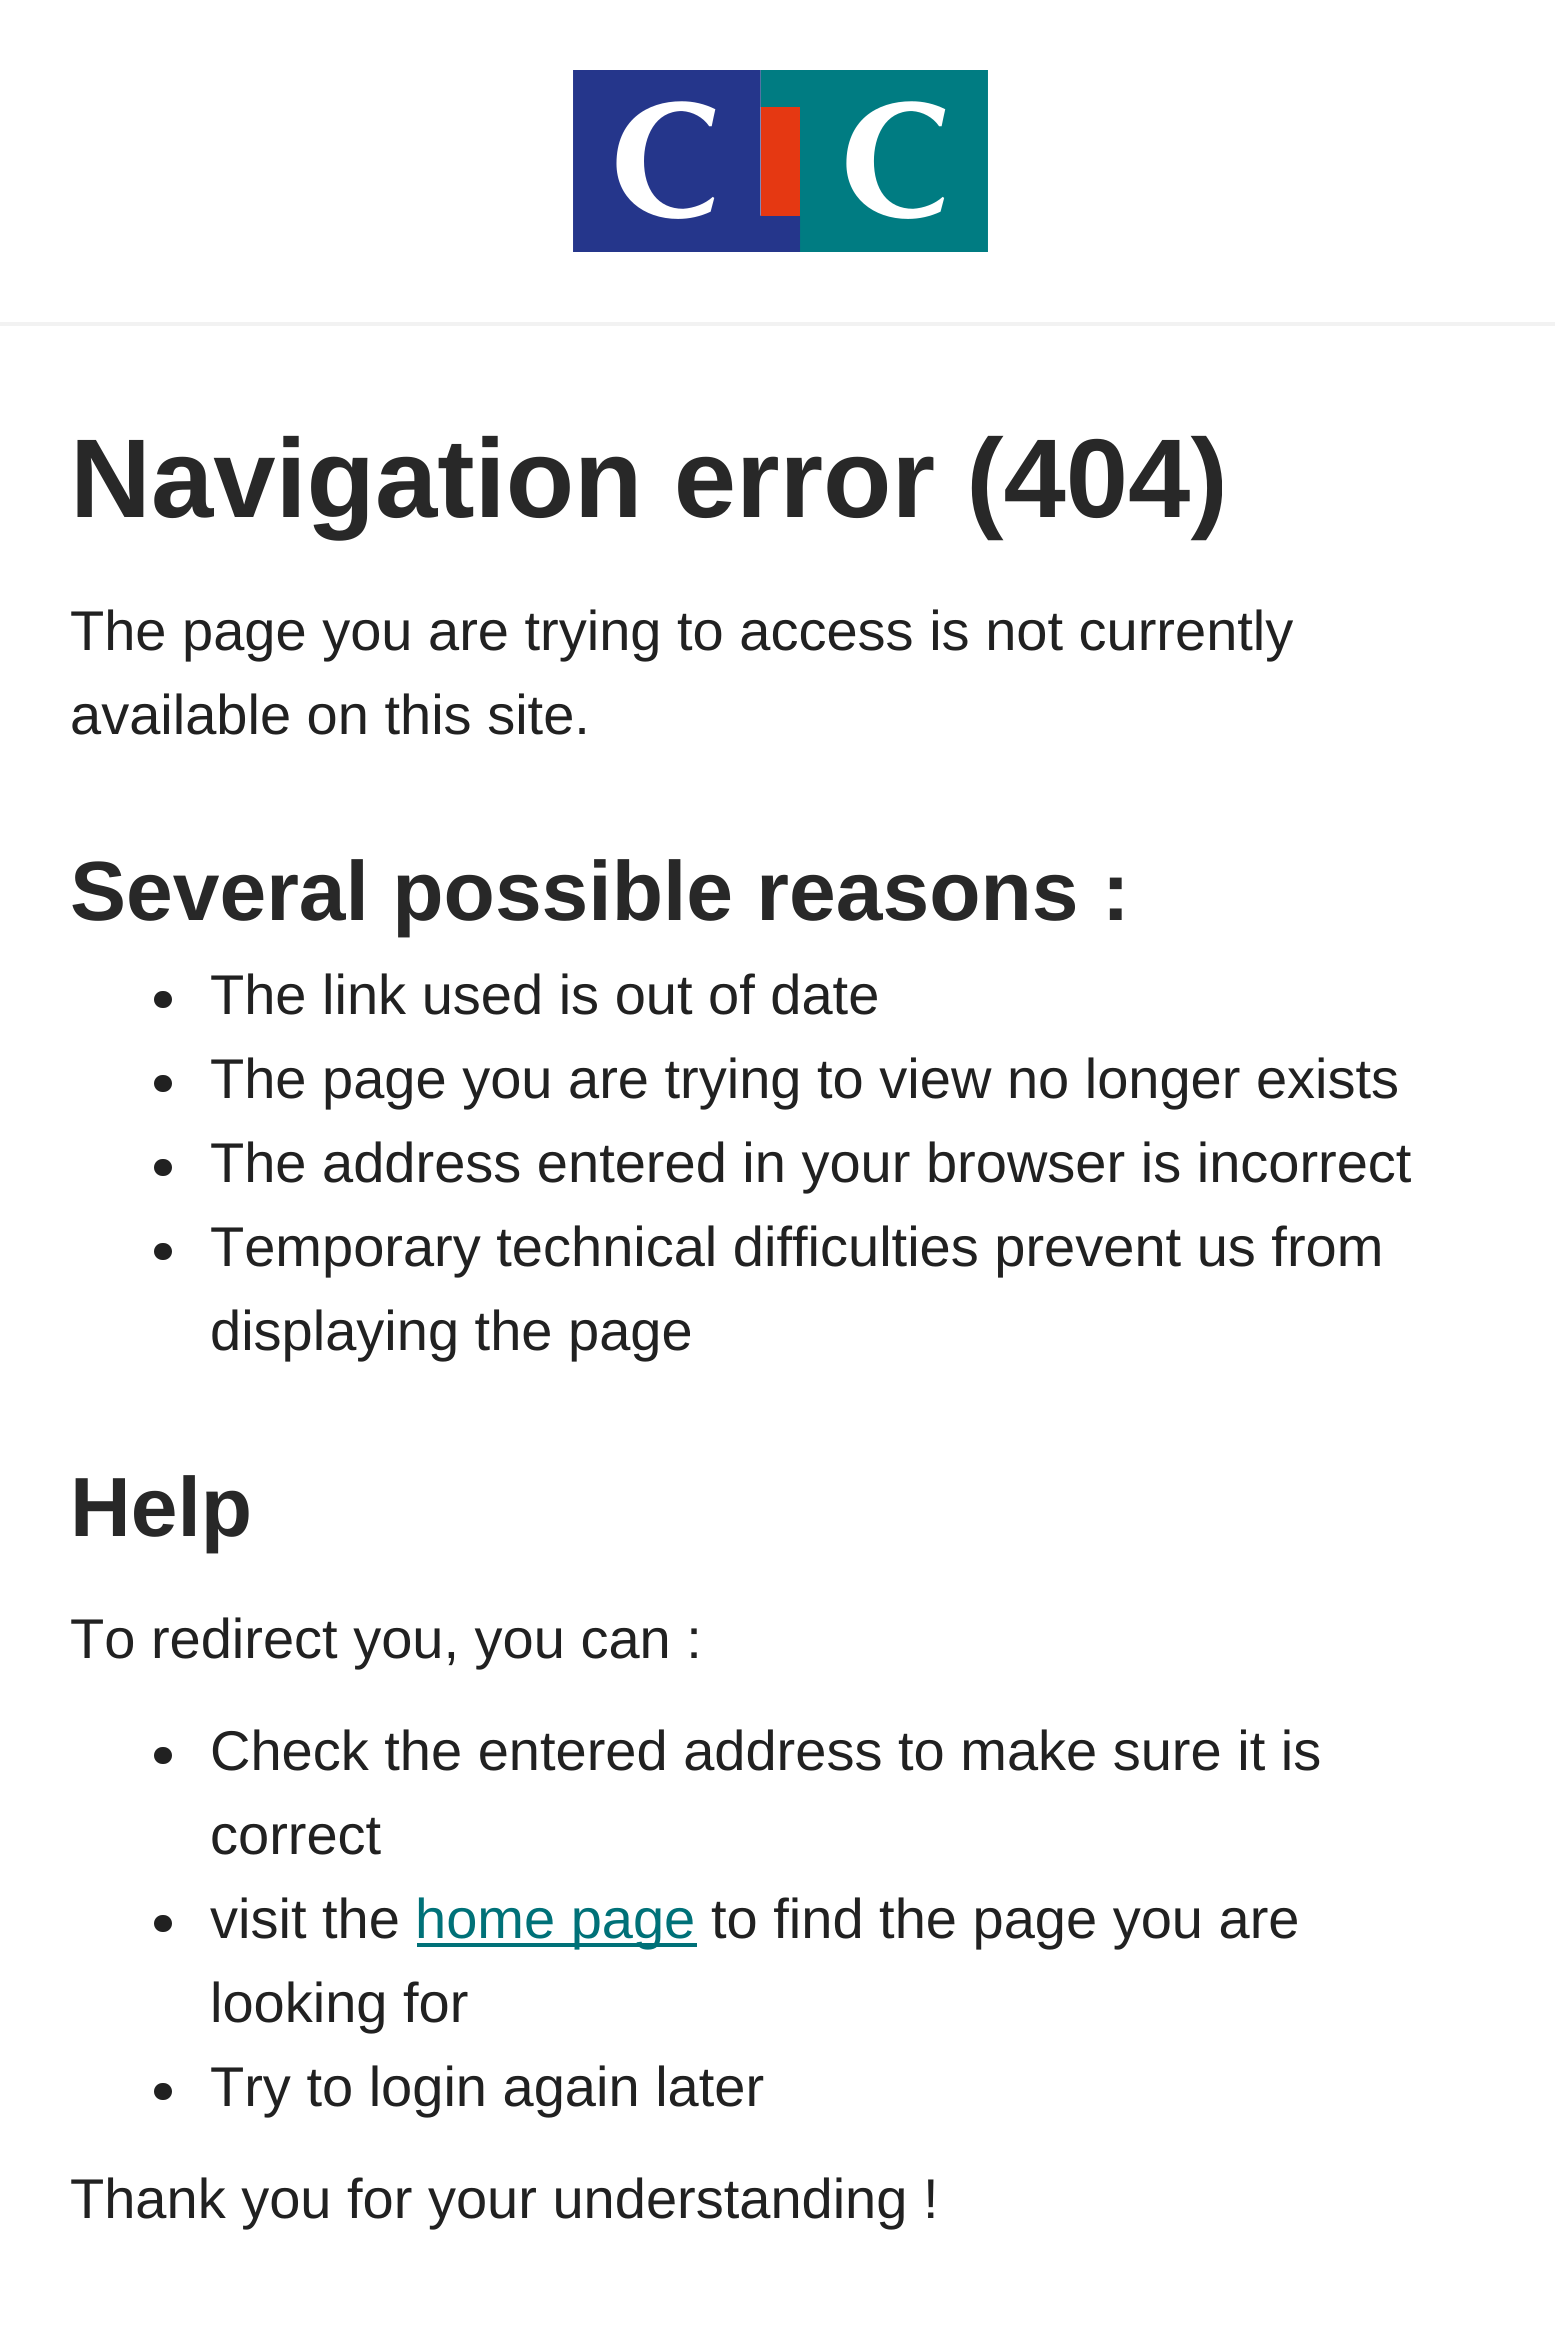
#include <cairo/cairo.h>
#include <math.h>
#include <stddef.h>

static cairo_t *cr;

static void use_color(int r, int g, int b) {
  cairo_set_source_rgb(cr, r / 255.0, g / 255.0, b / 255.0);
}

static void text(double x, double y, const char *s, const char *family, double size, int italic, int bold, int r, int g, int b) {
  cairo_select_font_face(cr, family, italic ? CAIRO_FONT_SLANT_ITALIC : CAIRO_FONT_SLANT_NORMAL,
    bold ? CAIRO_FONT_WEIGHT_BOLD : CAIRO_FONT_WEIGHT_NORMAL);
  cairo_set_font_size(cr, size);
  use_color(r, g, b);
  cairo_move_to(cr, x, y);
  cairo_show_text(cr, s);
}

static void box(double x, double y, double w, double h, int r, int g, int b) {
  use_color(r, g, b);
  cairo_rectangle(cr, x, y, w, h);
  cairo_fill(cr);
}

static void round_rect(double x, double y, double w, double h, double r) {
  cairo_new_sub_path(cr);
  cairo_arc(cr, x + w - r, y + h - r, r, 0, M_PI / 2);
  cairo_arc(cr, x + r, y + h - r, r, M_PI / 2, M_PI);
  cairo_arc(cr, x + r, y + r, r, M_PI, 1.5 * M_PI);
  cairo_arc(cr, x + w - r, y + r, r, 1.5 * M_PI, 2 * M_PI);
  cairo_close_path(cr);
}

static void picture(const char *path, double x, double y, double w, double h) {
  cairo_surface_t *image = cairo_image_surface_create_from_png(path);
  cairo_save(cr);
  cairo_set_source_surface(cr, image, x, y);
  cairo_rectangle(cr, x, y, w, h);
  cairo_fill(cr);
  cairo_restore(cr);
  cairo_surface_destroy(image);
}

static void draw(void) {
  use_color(255, 255, 255);
  cairo_paint(cr);
  box(0, 322, 1555, 4, 242, 242, 242);
  picture("img_01.png", 573, 70, 415, 182);
  use_color(33, 33, 33);
  round_rect(154, 991, 18, 17, 8.5);
  cairo_fill(cr);
  round_rect(154, 1075, 18, 17, 8.5);
  cairo_fill(cr);
  round_rect(154, 1159, 18, 17, 8.5);
  cairo_fill(cr);
  round_rect(154, 1243, 18, 17, 8.5);
  cairo_fill(cr);
  round_rect(154, 1747, 18, 17, 8.5);
  cairo_fill(cr);
  round_rect(154, 1915, 18, 17, 8.5);
  cairo_fill(cr);
  box(417, 1943, 280, 4, 0, 113, 120);
  use_color(33, 33, 33);
  round_rect(154, 2083, 18, 17, 8.5);
  cairo_fill(cr);
  text(70, 517, "Navigation error (404)", "Liberation Sans", 112, 0, 1, 40, 40, 40);
  text(70, 650, "The page you are trying to access is not currently", "Liberation Sans", 56, 0, 0, 33, 33, 33);
  text(70, 734, "available on this site.", "Liberation Sans", 56, 0, 0, 33, 33, 33);
  text(70, 920, "Several possible reasons :", "Liberation Sans", 84, 0, 1, 40, 40, 40);
  text(210, 1014, "The link used is out of date", "Liberation Sans", 56, 0, 0, 33, 33, 33);
  text(210, 1098, "The page you are trying to view no longer exists", "Liberation Sans", 56, 0, 0, 33, 33, 33);
  text(210, 1182, "The address entered in your browser is incorrect", "Liberation Sans", 56, 0, 0, 33, 33, 33);
  text(210, 1266, "Temporary technical difficulties prevent us from", "Liberation Sans", 56, 0, 0, 33, 33, 33);
  text(210, 1350, "displaying the page", "Liberation Sans", 56, 0, 0, 33, 33, 33);
  text(70, 1536, "Help", "Liberation Sans", 84, 0, 1, 40, 40, 40);
  text(70, 1658, "To redirect you, you can :", "Liberation Sans", 56, 0, 0, 33, 33, 33);
  text(210, 1770, "Check the entered address to make sure it is", "Liberation Sans", 56, 0, 0, 33, 33, 33);
  text(210, 1854, "correct", "Liberation Sans", 56, 0, 0, 33, 33, 33);
  text(210, 1938, "visit the", "Liberation Sans", 56, 0, 0, 33, 33, 33);
  text(415, 1938, "home page", "Liberation Sans", 56, 0, 0, 0, 113, 120);
  text(711, 1938, "to find the page you are", "Liberation Sans", 56, 0, 0, 33, 33, 33);
  text(210, 2022, "looking for", "Liberation Sans", 56, 0, 0, 33, 33, 33);
  text(210, 2106, "Try to login again later", "Liberation Sans", 56, 0, 0, 33, 33, 33);
  text(70, 2218, "Thank you for your understanding !", "Liberation Sans", 56, 0, 0, 33, 33, 33);
}

int main(void) {
  cairo_surface_t *surface = cairo_image_surface_create(CAIRO_FORMAT_RGB24, 1555, 2335);
  cr = cairo_create(surface);
  cairo_font_options_t *options = cairo_font_options_create();
  cairo_font_options_set_hint_metrics(options, CAIRO_HINT_METRICS_OFF);
  cairo_font_options_set_hint_style(options, CAIRO_HINT_STYLE_NONE);
  cairo_set_font_options(cr, options);
  cairo_set_miter_limit(cr, 4);
  draw();
  cairo_surface_write_to_png(surface, "out.png");
  cairo_font_options_destroy(options);
  cairo_destroy(cr);
  cairo_surface_destroy(surface);
  return 0;
}
